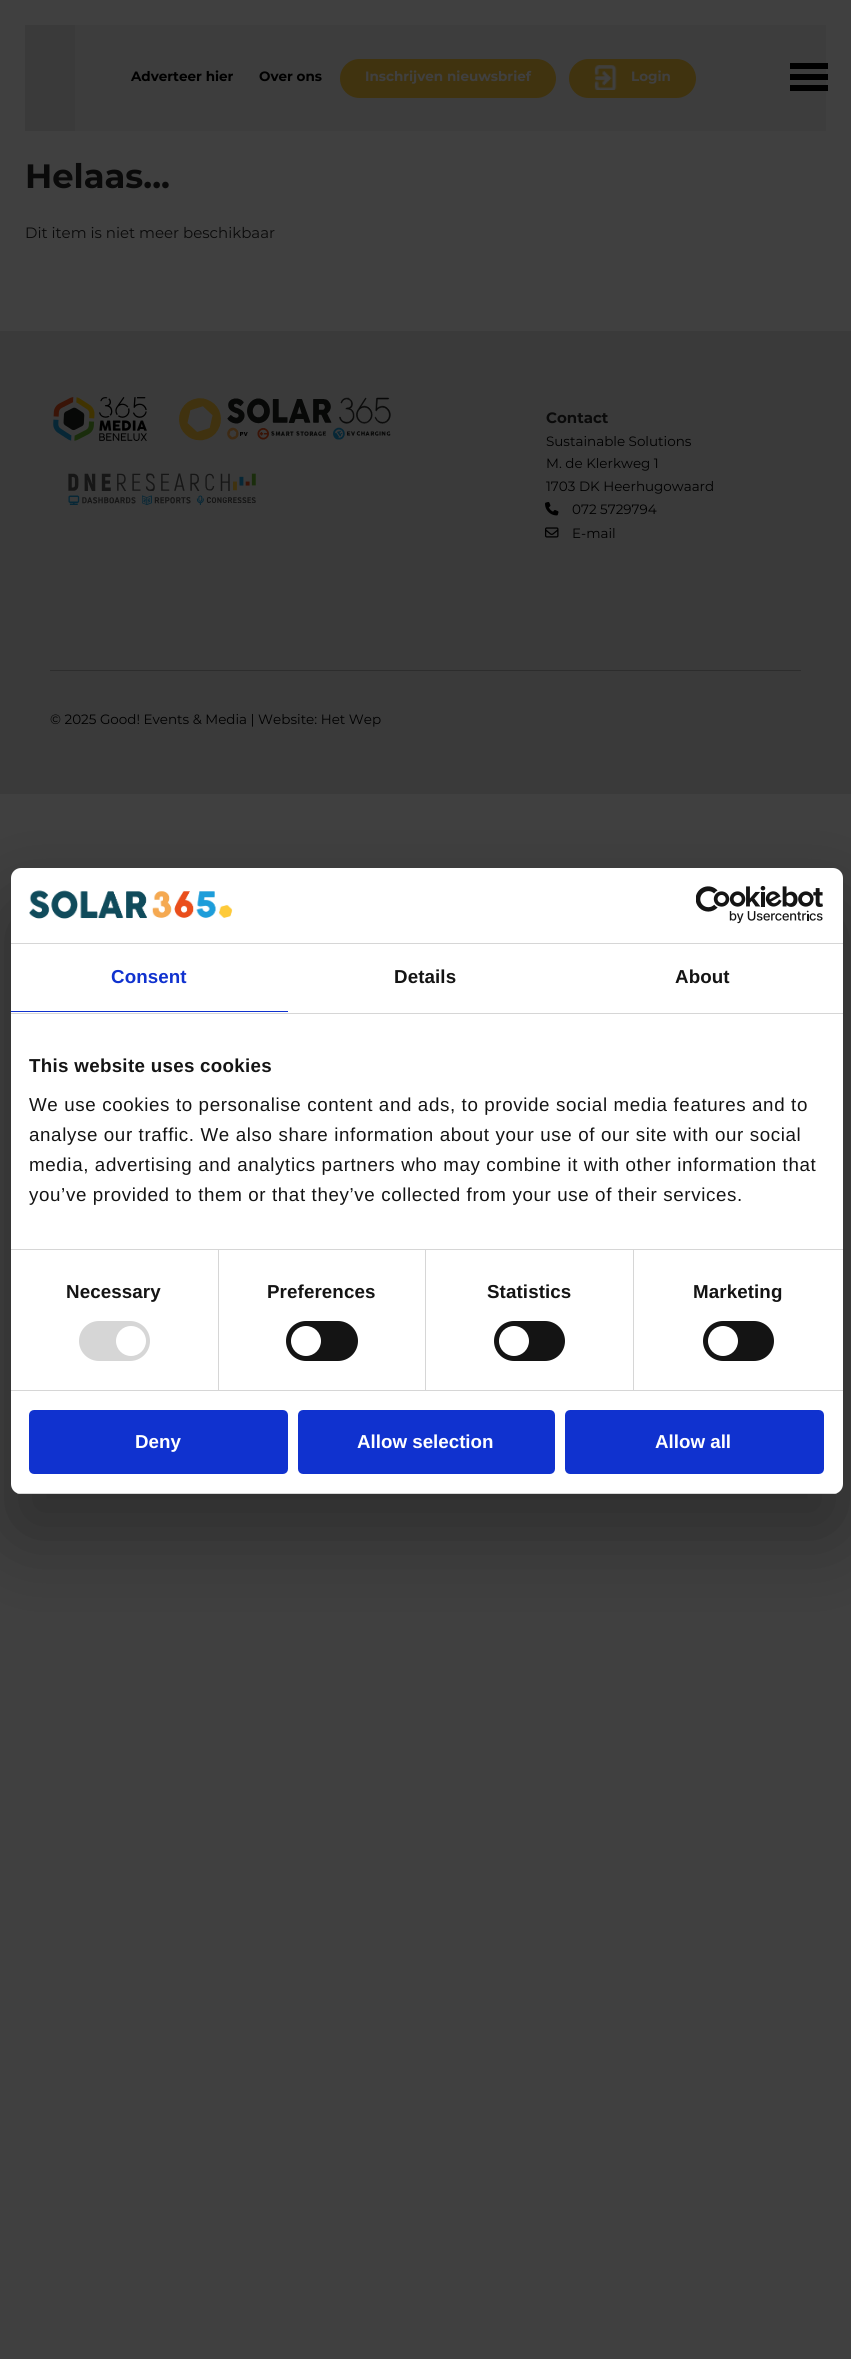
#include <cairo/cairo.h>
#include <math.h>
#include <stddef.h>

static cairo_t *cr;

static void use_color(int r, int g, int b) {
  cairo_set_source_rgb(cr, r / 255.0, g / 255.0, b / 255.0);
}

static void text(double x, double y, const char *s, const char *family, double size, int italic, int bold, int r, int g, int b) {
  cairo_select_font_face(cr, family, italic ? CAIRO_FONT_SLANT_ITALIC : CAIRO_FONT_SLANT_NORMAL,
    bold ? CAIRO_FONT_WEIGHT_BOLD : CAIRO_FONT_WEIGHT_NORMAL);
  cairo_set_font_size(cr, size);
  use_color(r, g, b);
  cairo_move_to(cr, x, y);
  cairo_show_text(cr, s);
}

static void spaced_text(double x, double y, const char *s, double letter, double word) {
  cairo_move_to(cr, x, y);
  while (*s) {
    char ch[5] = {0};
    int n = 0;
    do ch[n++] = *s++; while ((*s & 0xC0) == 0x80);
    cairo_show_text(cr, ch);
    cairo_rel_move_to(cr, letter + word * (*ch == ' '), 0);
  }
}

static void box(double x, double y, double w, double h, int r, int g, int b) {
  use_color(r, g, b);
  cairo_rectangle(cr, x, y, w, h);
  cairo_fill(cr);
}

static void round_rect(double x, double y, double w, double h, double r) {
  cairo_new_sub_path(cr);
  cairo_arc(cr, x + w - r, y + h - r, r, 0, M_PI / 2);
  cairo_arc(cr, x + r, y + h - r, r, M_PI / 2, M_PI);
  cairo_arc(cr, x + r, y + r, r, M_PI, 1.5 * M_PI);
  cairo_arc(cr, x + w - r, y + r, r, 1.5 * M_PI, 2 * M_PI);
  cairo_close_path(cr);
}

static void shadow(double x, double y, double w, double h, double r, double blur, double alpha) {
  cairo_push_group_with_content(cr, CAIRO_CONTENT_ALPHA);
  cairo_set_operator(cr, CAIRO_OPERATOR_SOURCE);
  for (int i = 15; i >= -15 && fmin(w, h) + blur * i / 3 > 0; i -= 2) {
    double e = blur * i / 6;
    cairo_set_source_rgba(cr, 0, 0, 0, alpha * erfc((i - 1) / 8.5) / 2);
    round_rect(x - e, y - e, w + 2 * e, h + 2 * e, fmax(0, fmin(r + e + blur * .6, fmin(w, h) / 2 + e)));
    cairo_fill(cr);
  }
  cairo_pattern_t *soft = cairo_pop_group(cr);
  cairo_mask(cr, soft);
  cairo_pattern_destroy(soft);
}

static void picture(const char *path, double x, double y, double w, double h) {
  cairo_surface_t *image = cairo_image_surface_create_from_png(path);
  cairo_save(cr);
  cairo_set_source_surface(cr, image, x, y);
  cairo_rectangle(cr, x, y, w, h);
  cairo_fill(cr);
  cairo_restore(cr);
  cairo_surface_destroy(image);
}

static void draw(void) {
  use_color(64, 64, 64);
  cairo_paint(cr);
  box(75, 25, 751, 106, 61, 61, 61);
  box(25, 25, 50, 106, 58, 58, 58);
  use_color(64, 51, 15);
  round_rect(340, 59, 216, 39, 19.5);
  cairo_fill(cr);
  round_rect(569, 59, 127, 39, 19.5);
  cairo_fill(cr);
  picture("img_01.png", 594, 65, 23, 25);
  box(790, 63, 38, 6, 0, 0, 0);
  box(790, 74, 38, 6, 0, 0, 0);
  box(790, 85, 38, 6, 0, 0, 0);
  box(0, 331, 851, 463, 58, 58, 58);
  picture("img_02.png", 53, 397, 94, 44);
  picture("img_03.png", 179, 397, 212, 44);
  picture("img_04.png", 68, 473, 188, 32);
  picture("img_05.png", 545, 502, 14, 14);
  picture("img_06.png", 545, 527, 14, 11);
  box(50, 670, 751, 1, 45, 45, 45);
  use_color(0, 0, 0);
  shadow(11, 908, 832, 626, 10, 42.5, 0.3);
  use_color(255, 255, 255);
  round_rect(11, 868, 832, 626, 10);
  cairo_fill(cr);
  box(11, 943, 832, 1, 214, 214, 214);
  picture("img_07.png", 29, 890, 204, 29);
  picture("img_08.png", 696, 886, 127, 38);
  box(11, 1013, 832, 1, 214, 214, 214);
  box(11, 1011, 277, 1, 16, 50, 207);
  box(11, 1249, 832, 1, 214, 214, 214);
  box(11, 1390, 832, 1, 214, 214, 214);
  box(218, 1250, 1, 140, 214, 214, 214);
  round_rect(79, 1321, 71, 40, 20);
  cairo_fill(cr);
  use_color(255, 255, 255);
  cairo_arc(cr, 131, 1341, 15, 0, 2 * M_PI);
  cairo_fill(cr);
  box(425, 1250, 1, 140, 214, 214, 214);
  use_color(20, 20, 20);
  round_rect(286, 1321, 72, 40, 20);
  cairo_fill(cr);
  use_color(255, 255, 255);
  cairo_arc(cr, 306, 1341, 15, 0, 2 * M_PI);
  cairo_fill(cr);
  box(633, 1250, 1, 140, 214, 214, 214);
  use_color(20, 20, 20);
  round_rect(494, 1321, 71, 40, 20);
  cairo_fill(cr);
  use_color(255, 255, 255);
  cairo_arc(cr, 514, 1341, 15, 0, 2 * M_PI);
  cairo_fill(cr);
  use_color(20, 20, 20);
  round_rect(703, 1321, 71, 40, 20);
  cairo_fill(cr);
  use_color(255, 255, 255);
  cairo_arc(cr, 723, 1341, 15, 0, 2 * M_PI);
  cairo_fill(cr);
  cairo_save(cr);
  round_rect(11, 868, 832, 626, 10);
  cairo_clip(cr);
  box(11, 1493, 832, 1, 214, 214, 214);
  cairo_restore(cr);
  use_color(16, 50, 207);
  round_rect(30.5, 1411.5, 256, 61, 3.5);
  cairo_fill_preserve(cr);
  cairo_set_line_width(cr, 3);
  cairo_stroke(cr);
  round_rect(299.5, 1411.5, 254, 61, 3.5);
  cairo_fill_preserve(cr);
  cairo_stroke(cr);
  round_rect(566.5, 1411.5, 256, 61, 3.5);
  cairo_fill_preserve(cr);
  cairo_stroke(cr);
  text(131, 81, "Adverteer hier", "Montserrat", 13.5, 0, 1, 0, 0, 0);
  text(259, 81, "Over ons", "Montserrat", 13.5, 0, 1, 0, 0, 0);
  text(365, 81, "Inschrijven nieuwsbrief", "Montserrat", 13.5, 0, 1, 64, 64, 64);
  text(631, 81, "Login", "Montserrat", 13.5, 0, 1, 64, 64, 64);
  text(25, 188, "Helaas...", "Montserrat", 33.75, 0, 1, 10, 10, 10);
  text(25, 238, "Dit item is niet meer beschikbaar", "Montserrat", 15, 0, 0, 10, 10, 10);
  text(546, 423, "Contact", "Montserrat", 15, 0, 1, 10, 10, 10);
  text(546, 446, "Sustainable Solutions", "Montserrat", 13.5, 0, 0, 0, 0, 0);
  text(546, 468, "M. de Klerkweg 1", "Montserrat", 13.5, 0, 0, 0, 0, 0);
  text(546, 491, "1703 DK Heerhugowaard", "Montserrat", 13.5, 0, 0, 0, 0, 0);
  text(572, 514, "072 5729794", "Montserrat", 13.5, 0, 0, 0, 0, 0);
  text(572, 538, "E-mail", "Montserrat", 13.5, 0, 0, 0, 0, 0);
  text(50, 724, "© 2025 Good! Events & Media | Website: Het Wep", "Montserrat", 13.5, 0, 0, 0, 0, 0);
  cairo_select_font_face(cr, "Liberation Sans", CAIRO_FONT_SLANT_NORMAL, CAIRO_FONT_WEIGHT_BOLD);
  cairo_set_font_size(cr, 18.75);
  use_color(16, 50, 207);
  spaced_text(111, 983, "Consent", 0.1, 0);
  use_color(20, 20, 20);
  spaced_text(394, 983, "Details", 0.1, 0);
  spaced_text(675, 983, "About", 0.1, 0);
  spaced_text(29, 1072, "This website uses cookies", 0.3, 0);
  cairo_select_font_face(cr, "Liberation Sans", CAIRO_FONT_SLANT_NORMAL, CAIRO_FONT_WEIGHT_NORMAL);
  spaced_text(29, 1111, "We use cookies to personalise content and ads, to provide social media features and to", 0.62, 0);
  spaced_text(29, 1141, "analyse our traffic. We also share information about your use of our site with our social", 0.62, 0);
  spaced_text(29, 1171, "media, advertising and analytics partners who may combine it with other information that", 0.62, 0);
  spaced_text(29, 1201, "you’ve provided to them or that they’ve collected from your use of their services.", 0.62, 0);
  cairo_select_font_face(cr, "Liberation Sans", CAIRO_FONT_SLANT_NORMAL, CAIRO_FONT_WEIGHT_BOLD);
  spaced_text(66, 1298, "Necessary", 0.1, 0);
  spaced_text(267, 1298, "Preferences", 0.1, 0);
  spaced_text(487, 1298, "Statistics", 0.1, 0);
  spaced_text(693, 1298, "Marketing", 0.1, 0);
  text(135, 1448, "Deny", "Liberation Sans", 18.75, 0, 1, 255, 255, 255);
  text(357, 1448, "Allow selection", "Liberation Sans", 18.75, 0, 1, 255, 255, 255);
  text(655, 1448, "Allow all", "Liberation Sans", 18.75, 0, 1, 255, 255, 255);
}

int main(void) {
  cairo_surface_t *surface = cairo_image_surface_create(CAIRO_FORMAT_RGB24, 851, 2359);
  cr = cairo_create(surface);
  cairo_font_options_t *options = cairo_font_options_create();
  cairo_font_options_set_hint_metrics(options, CAIRO_HINT_METRICS_OFF);
  cairo_font_options_set_hint_style(options, CAIRO_HINT_STYLE_NONE);
  cairo_set_font_options(cr, options);
  cairo_set_miter_limit(cr, 4);
  draw();
  cairo_surface_write_to_png(surface, "out.png");
  cairo_font_options_destroy(options);
  cairo_destroy(cr);
  cairo_surface_destroy(surface);
  return 0;
}
